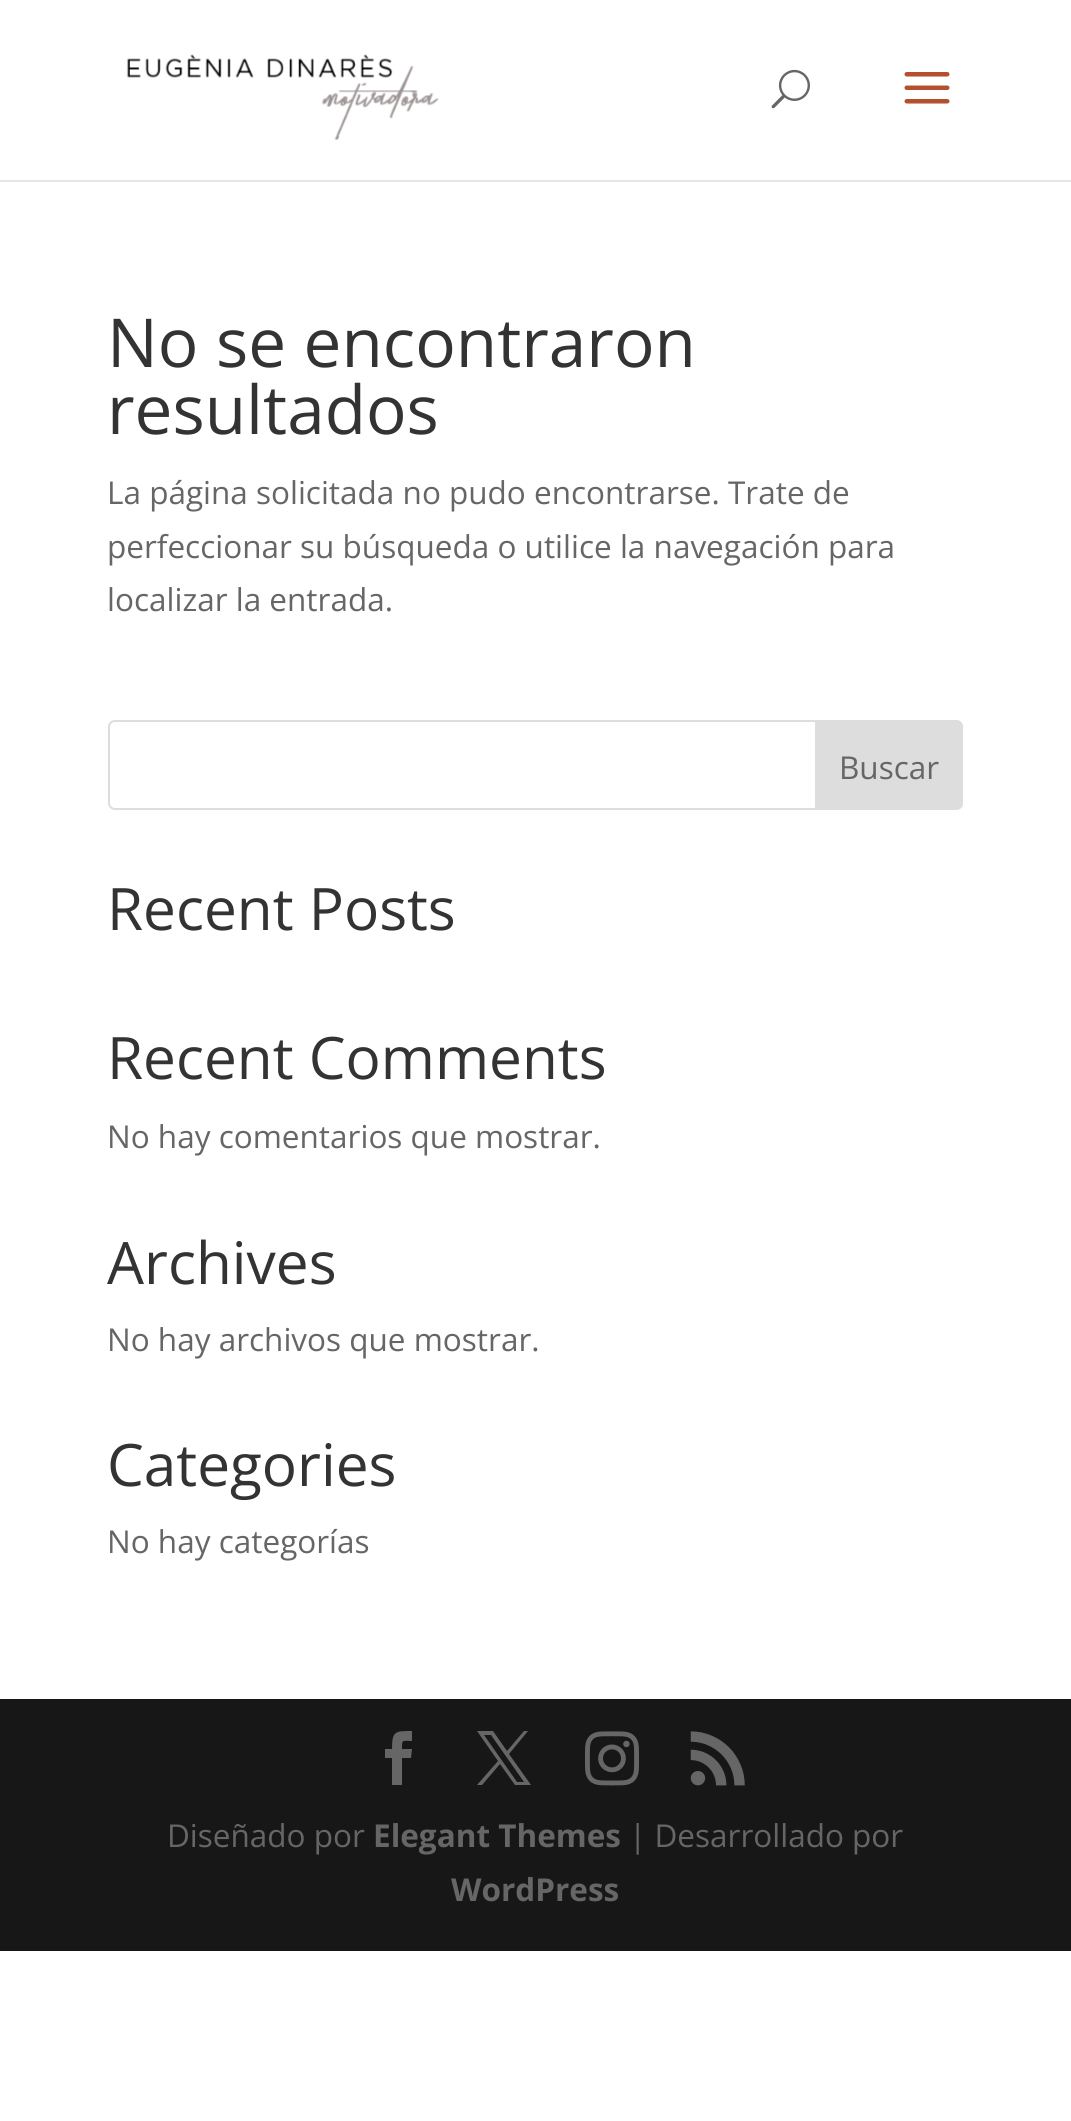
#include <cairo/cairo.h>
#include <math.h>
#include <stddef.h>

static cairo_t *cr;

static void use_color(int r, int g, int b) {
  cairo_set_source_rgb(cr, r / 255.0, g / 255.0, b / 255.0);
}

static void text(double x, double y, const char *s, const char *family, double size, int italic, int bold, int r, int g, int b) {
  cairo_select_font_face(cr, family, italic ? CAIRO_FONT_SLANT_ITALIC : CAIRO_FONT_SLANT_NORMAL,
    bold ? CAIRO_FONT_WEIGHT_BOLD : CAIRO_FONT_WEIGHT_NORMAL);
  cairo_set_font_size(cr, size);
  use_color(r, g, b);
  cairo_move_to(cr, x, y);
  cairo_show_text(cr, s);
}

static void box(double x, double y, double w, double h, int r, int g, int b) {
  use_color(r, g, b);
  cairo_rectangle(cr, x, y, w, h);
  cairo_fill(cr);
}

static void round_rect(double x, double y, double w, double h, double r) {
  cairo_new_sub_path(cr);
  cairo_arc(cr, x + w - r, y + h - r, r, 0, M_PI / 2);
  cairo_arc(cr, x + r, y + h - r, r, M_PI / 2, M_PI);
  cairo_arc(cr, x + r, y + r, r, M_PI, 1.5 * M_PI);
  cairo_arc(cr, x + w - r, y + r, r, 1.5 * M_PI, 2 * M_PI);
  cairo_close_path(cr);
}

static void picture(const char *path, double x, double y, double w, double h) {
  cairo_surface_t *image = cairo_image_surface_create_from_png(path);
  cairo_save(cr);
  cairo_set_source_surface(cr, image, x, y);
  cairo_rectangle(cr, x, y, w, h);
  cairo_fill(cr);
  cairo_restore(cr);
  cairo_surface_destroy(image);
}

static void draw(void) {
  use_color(255, 255, 255);
  cairo_paint(cr);
  box(0, 180, 1071, 2, 230, 230, 230);
  picture("img_01.png", 126, 54, 313, 86);
  picture("img_02.png", 771, 69, 39, 40);
  picture("img_03.png", 904, 72, 46, 32);
  round_rect(109, 721, 853, 88, 6);
  use_color(221, 221, 221);
  cairo_stroke(cr);
  cairo_new_path(cr);
  cairo_move_to(cr, 816, 721);
  cairo_line_to(cr, 956, 721);
  cairo_curve_to(cr, 959.5, 721, 962, 723.5, 962, 727);
  cairo_line_to(cr, 962, 803);
  cairo_curve_to(cr, 962, 806.5, 959.5, 809, 956, 809);
  cairo_line_to(cr, 816, 809);
  cairo_close_path(cr);
  cairo_fill_preserve(cr);
  cairo_stroke(cr);
  box(0, 1699, 1071, 252, 23, 23, 23);
  use_color(102, 102, 102);
  cairo_new_path(cr);
  cairo_move_to(cr, 392, 1785);
  cairo_line_to(cr, 402, 1785);
  cairo_line_to(cr, 402, 1758);
  cairo_line_to(cr, 411, 1758);
  cairo_line_to(cr, 412, 1749);
  cairo_line_to(cr, 402, 1749);
  cairo_curve_to(cr, 402, 1739, 402, 1741, 412, 1741);
  cairo_line_to(cr, 412, 1731);
  cairo_curve_to(cr, 395, 1731, 392, 1731, 392, 1749);
  cairo_line_to(cr, 385, 1749);
  cairo_line_to(cr, 385, 1758);
  cairo_line_to(cr, 392, 1758);
  cairo_close_path(cr);
  cairo_fill(cr);
  cairo_new_path(cr);
  cairo_move_to(cr, 477, 1731);
  cairo_line_to(cr, 498, 1761);
  cairo_line_to(cr, 477, 1785);
  cairo_line_to(cr, 482, 1785);
  cairo_line_to(cr, 500, 1764);
  cairo_line_to(cr, 515, 1785);
  cairo_line_to(cr, 531, 1785);
  cairo_line_to(cr, 509, 1754);
  cairo_line_to(cr, 528, 1731);
  cairo_line_to(cr, 524, 1731);
  cairo_line_to(cr, 507, 1751);
  cairo_line_to(cr, 493, 1731);
  cairo_close_path(cr);
  cairo_move_to(cr, 484, 1735);
  cairo_line_to(cr, 491, 1735);
  cairo_line_to(cr, 524, 1782);
  cairo_line_to(cr, 517, 1782);
  cairo_close_path(cr);
  cairo_fill(cr);
  picture("img_04.png", 585, 1731, 54, 55);
  picture("img_05.png", 690, 1731, 55, 55);
  text(107, 367, "No se encontraron", "Open Sans", 67.5, 0, 0, 51, 51, 51);
  text(107, 434, "resultados", "Open Sans", 67.5, 0, 0, 51, 51, 51);
  text(107, 504, "La página solicitada no pudo encontrarse. Trate de", "Open Sans", 31.5, 0, 0, 102, 102, 102);
  text(107, 558, "perfeccionar su búsqueda o utilice la navegación para", "Open Sans", 31.5, 0, 0, 102, 102, 102);
  text(107, 611, "localizar la entrada.", "Open Sans", 31.5, 0, 0, 102, 102, 102);
  text(839, 779, "Buscar", "Open Sans", 31.5, 0, 0, 102, 102, 102);
  text(107, 930, "Recent Posts", "Open Sans", 58.5, 0, 0, 51, 51, 51);
  text(107, 1079, "Recent Comments", "Open Sans", 58.5, 0, 0, 51, 51, 51);
  text(107, 1148, "No hay comentarios que mostrar.", "Open Sans", 31.5, 0, 0, 102, 102, 102);
  text(107, 1284, "Archives", "Open Sans", 58.5, 0, 0, 51, 51, 51);
  text(107, 1351, "No hay archivos que mostrar.", "Open Sans", 31.5, 0, 0, 102, 102, 102);
  text(107, 1486, "Categories", "Open Sans", 58.5, 0, 0, 51, 51, 51);
  text(107, 1553, "No hay categorías", "Open Sans", 31.5, 0, 0, 102, 102, 102);
  text(167, 1847, "Diseñado por", "Open Sans", 31.5, 0, 0, 102, 102, 102);
  text(373, 1847, "Elegant Themes", "Open Sans", 31.5, 0, 1, 102, 102, 102);
  text(629, 1847, "| Desarrollado por", "Open Sans", 31.5, 0, 0, 102, 102, 102);
  text(451, 1901, "WordPress", "Open Sans", 31.5, 0, 1, 102, 102, 102);
}

int main(void) {
  cairo_surface_t *surface = cairo_image_surface_create(CAIRO_FORMAT_RGB24, 1071, 2121);
  cr = cairo_create(surface);
  cairo_font_options_t *options = cairo_font_options_create();
  cairo_font_options_set_hint_metrics(options, CAIRO_HINT_METRICS_OFF);
  cairo_font_options_set_hint_style(options, CAIRO_HINT_STYLE_NONE);
  cairo_set_font_options(cr, options);
  cairo_set_miter_limit(cr, 4);
  draw();
  cairo_surface_write_to_png(surface, "out.png");
  cairo_font_options_destroy(options);
  cairo_destroy(cr);
  cairo_surface_destroy(surface);
  return 0;
}
